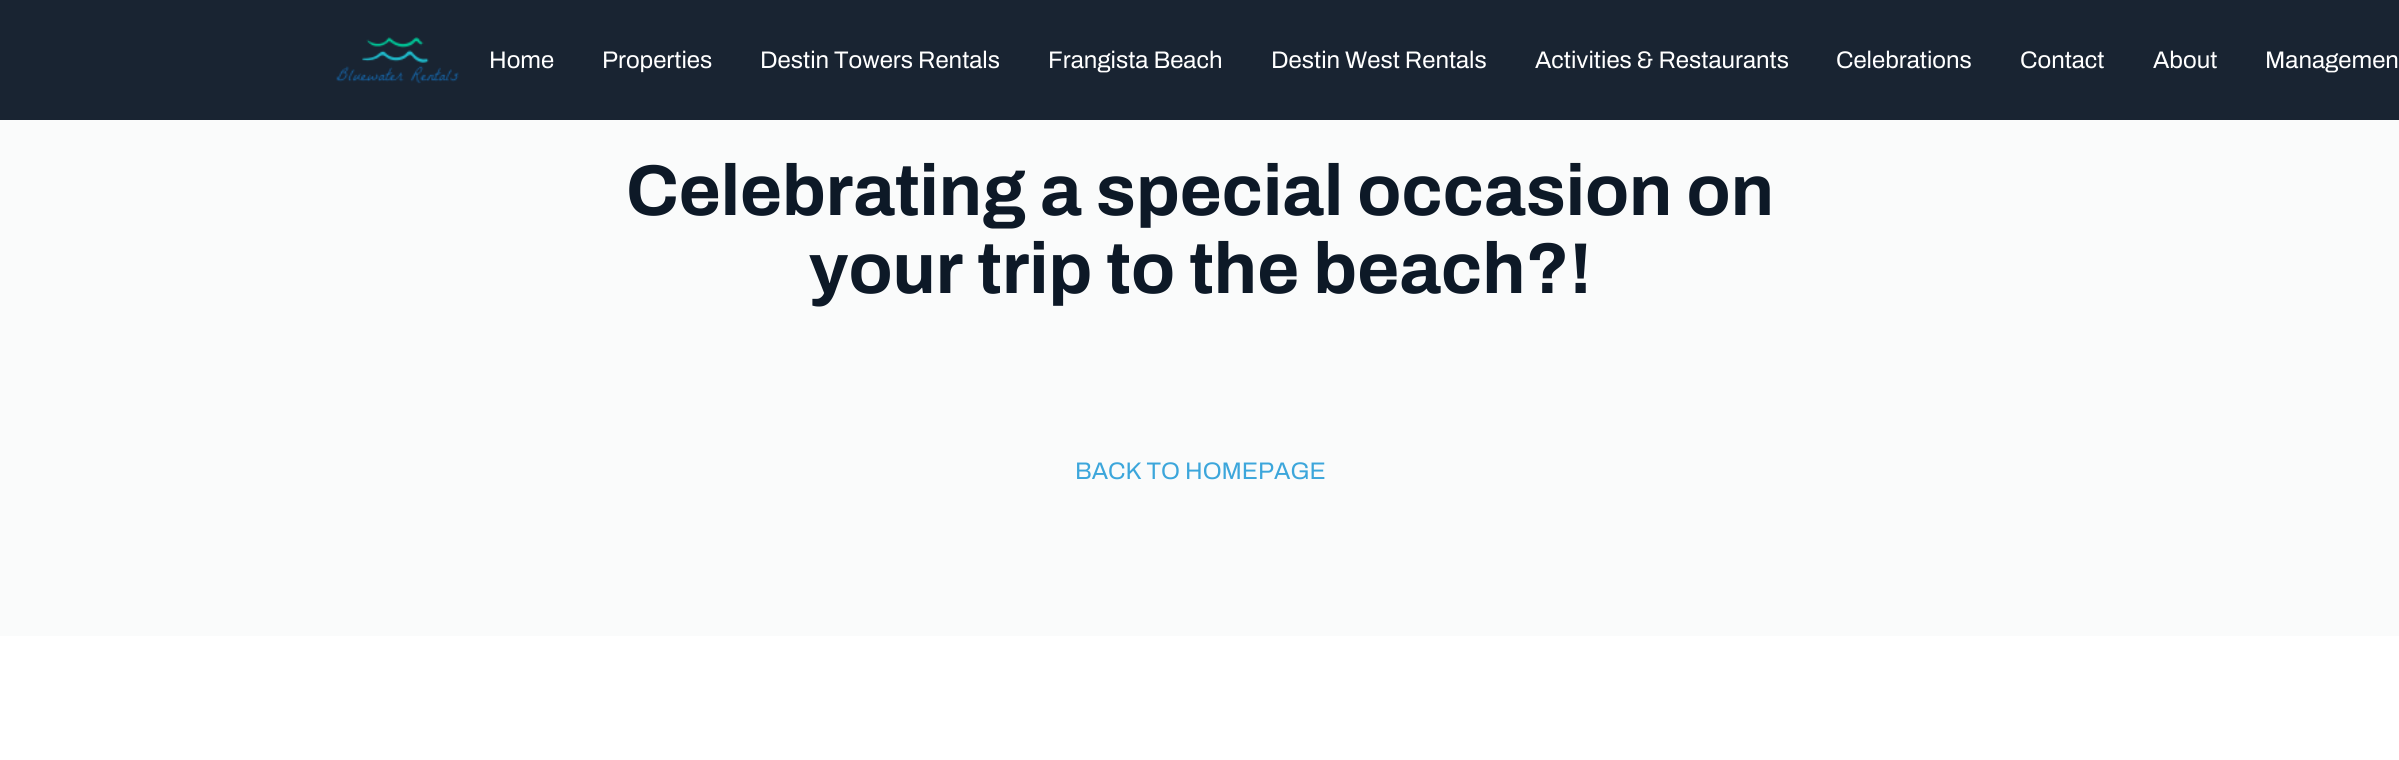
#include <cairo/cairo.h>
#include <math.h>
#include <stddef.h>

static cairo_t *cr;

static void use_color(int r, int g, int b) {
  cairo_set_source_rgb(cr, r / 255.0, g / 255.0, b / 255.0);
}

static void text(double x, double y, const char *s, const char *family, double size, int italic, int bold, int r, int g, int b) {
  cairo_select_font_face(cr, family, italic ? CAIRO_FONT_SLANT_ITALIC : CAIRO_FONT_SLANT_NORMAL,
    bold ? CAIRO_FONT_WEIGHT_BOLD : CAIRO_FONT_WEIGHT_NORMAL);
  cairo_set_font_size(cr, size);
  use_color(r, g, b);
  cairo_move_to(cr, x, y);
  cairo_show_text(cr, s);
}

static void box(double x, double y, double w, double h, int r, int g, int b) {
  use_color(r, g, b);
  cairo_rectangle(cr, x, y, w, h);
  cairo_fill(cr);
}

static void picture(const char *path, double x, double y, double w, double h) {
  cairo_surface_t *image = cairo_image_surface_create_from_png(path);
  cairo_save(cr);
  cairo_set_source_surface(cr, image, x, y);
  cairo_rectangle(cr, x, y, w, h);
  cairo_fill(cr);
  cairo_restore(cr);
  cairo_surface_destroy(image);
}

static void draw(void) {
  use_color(250, 251, 251);
  cairo_paint(cr);
  box(0, 0, 2399, 120, 25, 36, 50);
  picture("img_01.png", 336, 37, 123, 47);
  box(0, 636, 2399, 124, 255, 255, 255);
  text(489, 68, "Home", "Archivo", 24, 0, 0, 255, 255, 255);
  text(602, 68, "Properties", "Archivo", 24, 0, 0, 255, 255, 255);
  text(760, 68, "Destin Towers Rentals", "Archivo", 24, 0, 0, 255, 255, 255);
  text(1048, 68, "Frangista Beach", "Archivo", 24, 0, 0, 255, 255, 255);
  text(1271, 68, "Destin West Rentals", "Archivo", 24, 0, 0, 255, 255, 255);
  text(1535, 68, "Activities & Restaurants", "Archivo", 24, 0, 0, 255, 255, 255);
  text(1836, 68, "Celebrations", "Archivo", 24, 0, 0, 255, 255, 255);
  text(2020, 68, "Contact", "Archivo", 24, 0, 0, 255, 255, 255);
  text(2153, 68, "About", "Archivo", 24, 0, 0, 255, 255, 255);
  text(2265, 68, "Managemen", "Archivo", 24, 0, 0, 255, 255, 255);
  text(626, 215, "Celebrating a special occasion on", "Archivo", 72, 0, 1, 13, 25, 39);
  text(809, 293, "your trip to the beach?!", "Archivo", 72, 0, 1, 13, 25, 39);
  text(1075, 479, "BACK TO HOMEPAGE", "Archivo", 24, 0, 0, 60, 166, 219);
}

int main(void) {
  cairo_surface_t *surface = cairo_image_surface_create(CAIRO_FORMAT_RGB24, 2399, 760);
  cr = cairo_create(surface);
  cairo_font_options_t *options = cairo_font_options_create();
  cairo_font_options_set_hint_metrics(options, CAIRO_HINT_METRICS_OFF);
  cairo_font_options_set_hint_style(options, CAIRO_HINT_STYLE_NONE);
  cairo_set_font_options(cr, options);
  cairo_set_miter_limit(cr, 4);
  draw();
  cairo_surface_write_to_png(surface, "out.png");
  cairo_font_options_destroy(options);
  cairo_destroy(cr);
  cairo_surface_destroy(surface);
  return 0;
}
